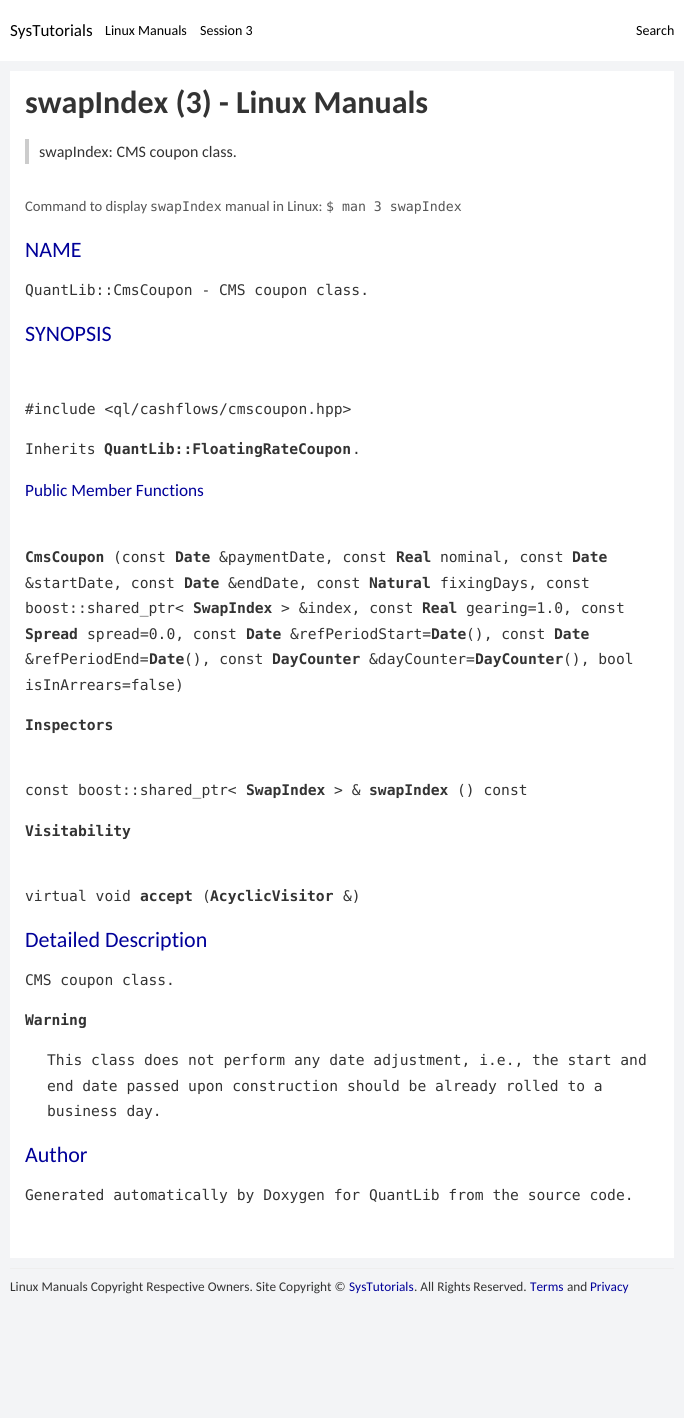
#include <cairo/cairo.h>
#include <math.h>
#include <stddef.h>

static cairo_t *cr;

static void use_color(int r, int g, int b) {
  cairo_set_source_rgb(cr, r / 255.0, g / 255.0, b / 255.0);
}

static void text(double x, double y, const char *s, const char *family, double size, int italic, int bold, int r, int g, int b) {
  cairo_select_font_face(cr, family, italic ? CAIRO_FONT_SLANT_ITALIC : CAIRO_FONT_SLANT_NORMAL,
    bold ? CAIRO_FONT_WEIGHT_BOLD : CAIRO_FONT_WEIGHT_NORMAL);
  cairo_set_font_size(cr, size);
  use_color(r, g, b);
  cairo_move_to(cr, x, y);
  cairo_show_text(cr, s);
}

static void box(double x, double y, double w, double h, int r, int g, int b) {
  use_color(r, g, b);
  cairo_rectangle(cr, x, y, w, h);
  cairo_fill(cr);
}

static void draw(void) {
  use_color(243, 244, 246);
  cairo_paint(cr);
  box(0, 0, 684, 61, 255, 255, 255);
  box(10, 71, 664, 1187, 255, 255, 255);
  box(25, 139, 4, 25, 204, 204, 204);
  box(10, 1268, 664, 1, 238, 238, 238);
  text(10, 36, "SysTutorials", "Carlito", 17, 0, 0, 0, 0, 0);
  text(105, 35, "Linux Manuals", "Carlito", 14, 0, 0, 0, 0, 0);
  text(200, 35, "Session 3", "Carlito", 14, 0, 0, 0, 0, 0);
  text(636, 35, "Search", "Carlito", 14, 0, 0, 0, 0, 0);
  text(25, 113, "swapIndex (3) - Linux Manuals", "Carlito", 32, 0, 1, 51, 51, 51);
  text(39, 157, "swapIndex: CMS coupon class.", "Carlito", 16, 0, 0, 51, 51, 51);
  text(25, 211, "Command to display", "Carlito", 14.65, 0, 0, 85, 85, 85);
  text(150, 211, "swapIndex", "DejaVu Sans Mono", 13.25, 0, 0, 85, 85, 85);
  text(225, 211, "manual in Linux:", "Carlito", 14.65, 0, 0, 85, 85, 85);
  text(326, 211, "$ man 3 swapIndex", "DejaVu Sans Mono", 13.25, 0, 0, 85, 85, 85);
  text(25, 257, "NAME", "Carlito", 22, 0, 0, 0, 0, 153);
  text(25, 295, "QuantLib::CmsCoupon - CMS coupon class.", "DejaVu Sans Mono", 14.65, 0, 0, 51, 51, 51);
  text(25, 341, "SYNOPSIS", "Carlito", 22, 0, 0, 0, 0, 153);
  text(25, 414, "#include <ql/cashflows/cmscoupon.hpp>", "DejaVu Sans Mono", 14.65, 0, 0, 51, 51, 51);
  text(25, 454, "Inherits", "DejaVu Sans Mono", 14.65, 0, 0, 51, 51, 51);
  text(104, 454, "QuantLib::FloatingRateCoupon", "DejaVu Sans Mono", 14.65, 0, 1, 51, 51, 51);
  text(352, 454, ".", "DejaVu Sans Mono", 14.65, 0, 0, 51, 51, 51);
  text(25, 496, "Public Member Functions", "Carlito", 17.25, 0, 0, 0, 0, 153);
  text(25, 562, "CmsCoupon", "DejaVu Sans Mono", 14.65, 0, 1, 51, 51, 51);
  text(113, 562, "(const", "DejaVu Sans Mono", 14.65, 0, 0, 51, 51, 51);
  text(175, 562, "Date", "DejaVu Sans Mono", 14.65, 0, 1, 51, 51, 51);
  text(219, 562, "&paymentDate, const", "DejaVu Sans Mono", 14.65, 0, 0, 51, 51, 51);
  text(396, 562, "Real", "DejaVu Sans Mono", 14.65, 0, 1, 51, 51, 51);
  text(440, 562, "nominal, const", "DejaVu Sans Mono", 14.65, 0, 0, 51, 51, 51);
  text(572, 562, "Date", "DejaVu Sans Mono", 14.65, 0, 1, 51, 51, 51);
  text(25, 588, "&startDate, const", "DejaVu Sans Mono", 14.65, 0, 0, 51, 51, 51);
  text(184, 588, "Date", "DejaVu Sans Mono", 14.65, 0, 1, 51, 51, 51);
  text(228, 588, "&endDate, const", "DejaVu Sans Mono", 14.65, 0, 0, 51, 51, 51);
  text(369, 588, "Natural", "DejaVu Sans Mono", 14.65, 0, 1, 51, 51, 51);
  text(440, 588, "fixingDays, const", "DejaVu Sans Mono", 14.65, 0, 0, 51, 51, 51);
  text(25, 613, "boost::shared_ptr<", "DejaVu Sans Mono", 14.65, 0, 0, 51, 51, 51);
  text(193, 613, "SwapIndex", "DejaVu Sans Mono", 14.65, 0, 1, 51, 51, 51);
  text(281, 613, "> &index, const", "DejaVu Sans Mono", 14.65, 0, 0, 51, 51, 51);
  text(422, 613, "Real", "DejaVu Sans Mono", 14.65, 0, 1, 51, 51, 51);
  text(466, 613, "gearing=1.0, const", "DejaVu Sans Mono", 14.65, 0, 0, 51, 51, 51);
  text(25, 639, "Spread", "DejaVu Sans Mono", 14.65, 0, 1, 51, 51, 51);
  text(87, 639, "spread=0.0, const", "DejaVu Sans Mono", 14.65, 0, 0, 51, 51, 51);
  text(246, 639, "Date", "DejaVu Sans Mono", 14.65, 0, 1, 51, 51, 51);
  text(290, 639, "&refPeriodStart=", "DejaVu Sans Mono", 14.65, 0, 0, 51, 51, 51);
  text(431, 639, "Date", "DejaVu Sans Mono", 14.65, 0, 1, 51, 51, 51);
  text(466, 639, "(), const", "DejaVu Sans Mono", 14.65, 0, 0, 51, 51, 51);
  text(554, 639, "Date", "DejaVu Sans Mono", 14.65, 0, 1, 51, 51, 51);
  text(25, 664, "&refPeriodEnd=", "DejaVu Sans Mono", 14.65, 0, 0, 51, 51, 51);
  text(149, 664, "Date", "DejaVu Sans Mono", 14.65, 0, 1, 51, 51, 51);
  text(184, 664, "(), const", "DejaVu Sans Mono", 14.65, 0, 0, 51, 51, 51);
  text(272, 664, "DayCounter", "DejaVu Sans Mono", 14.65, 0, 1, 51, 51, 51);
  text(369, 664, "&dayCounter=", "DejaVu Sans Mono", 14.65, 0, 0, 51, 51, 51);
  text(475, 664, "DayCounter", "DejaVu Sans Mono", 14.65, 0, 1, 51, 51, 51);
  text(563, 664, "(), bool", "DejaVu Sans Mono", 14.65, 0, 0, 51, 51, 51);
  text(25, 690, "isInArrears=false)", "DejaVu Sans Mono", 14.65, 0, 0, 51, 51, 51);
  text(25, 730, "Inspectors", "DejaVu Sans Mono", 14.65, 0, 1, 51, 51, 51);
  text(25, 795, "const boost::shared_ptr<", "DejaVu Sans Mono", 14.65, 0, 0, 51, 51, 51);
  text(246, 795, "SwapIndex", "DejaVu Sans Mono", 14.65, 0, 1, 51, 51, 51);
  text(334, 795, "> &", "DejaVu Sans Mono", 14.65, 0, 0, 51, 51, 51);
  text(369, 795, "swapIndex", "DejaVu Sans Mono", 14.65, 0, 1, 51, 51, 51);
  text(457, 795, "() const", "DejaVu Sans Mono", 14.65, 0, 0, 51, 51, 51);
  text(25, 836, "Visitability", "DejaVu Sans Mono", 14.65, 0, 1, 51, 51, 51);
  text(25, 901, "virtual void", "DejaVu Sans Mono", 14.65, 0, 0, 51, 51, 51);
  text(140, 901, "accept", "DejaVu Sans Mono", 14.65, 0, 1, 51, 51, 51);
  text(202, 901, "(", "DejaVu Sans Mono", 14.65, 0, 0, 51, 51, 51);
  text(210, 901, "AcyclicVisitor", "DejaVu Sans Mono", 14.65, 0, 1, 51, 51, 51);
  text(343, 901, "&)", "DejaVu Sans Mono", 14.65, 0, 0, 51, 51, 51);
  text(25, 947, "Detailed Description", "Carlito", 22, 0, 0, 0, 0, 153);
  text(25, 985, "CMS coupon class.", "DejaVu Sans Mono", 14.65, 0, 0, 51, 51, 51);
  text(25, 1025, "Warning", "DejaVu Sans Mono", 14.65, 0, 1, 51, 51, 51);
  text(47, 1065, "This class does not perform any date adjustment, i.e., the start and", "DejaVu Sans Mono", 14.65, 0, 0, 51, 51, 51);
  text(47, 1091, "end date passed upon construction should be already rolled to a", "DejaVu Sans Mono", 14.65, 0, 0, 51, 51, 51);
  text(47, 1116, "business day.", "DejaVu Sans Mono", 14.65, 0, 0, 51, 51, 51);
  text(25, 1162, "Author", "Carlito", 22, 0, 0, 0, 0, 153);
  text(25, 1200, "Generated automatically by Doxygen for QuantLib from the source code.", "DejaVu Sans Mono", 14.65, 0, 0, 51, 51, 51);
  text(10, 1291, "Linux Manuals Copyright Respective Owners. Site Copyright ©", "Carlito", 13.3, 0, 0, 51, 51, 51);
  text(349, 1291, "SysTutorials", "Carlito", 13.3, 0, 0, 0, 0, 153);
  text(414, 1291, ". All Rights Reserved.", "Carlito", 13.3, 0, 0, 51, 51, 51);
  text(530, 1291, "Terms", "Carlito", 13.3, 0, 0, 0, 0, 153);
  text(567, 1291, "and", "Carlito", 13.3, 0, 0, 51, 51, 51);
  text(590, 1291, "Privacy", "Carlito", 13.3, 0, 0, 0, 0, 153);
}

int main(void) {
  cairo_surface_t *surface = cairo_image_surface_create(CAIRO_FORMAT_RGB24, 684, 1418);
  cr = cairo_create(surface);
  cairo_font_options_t *options = cairo_font_options_create();
  cairo_font_options_set_hint_metrics(options, CAIRO_HINT_METRICS_OFF);
  cairo_font_options_set_hint_style(options, CAIRO_HINT_STYLE_NONE);
  cairo_set_font_options(cr, options);
  cairo_set_miter_limit(cr, 4);
  draw();
  cairo_surface_write_to_png(surface, "out.png");
  cairo_font_options_destroy(options);
  cairo_destroy(cr);
  cairo_surface_destroy(surface);
  return 0;
}
